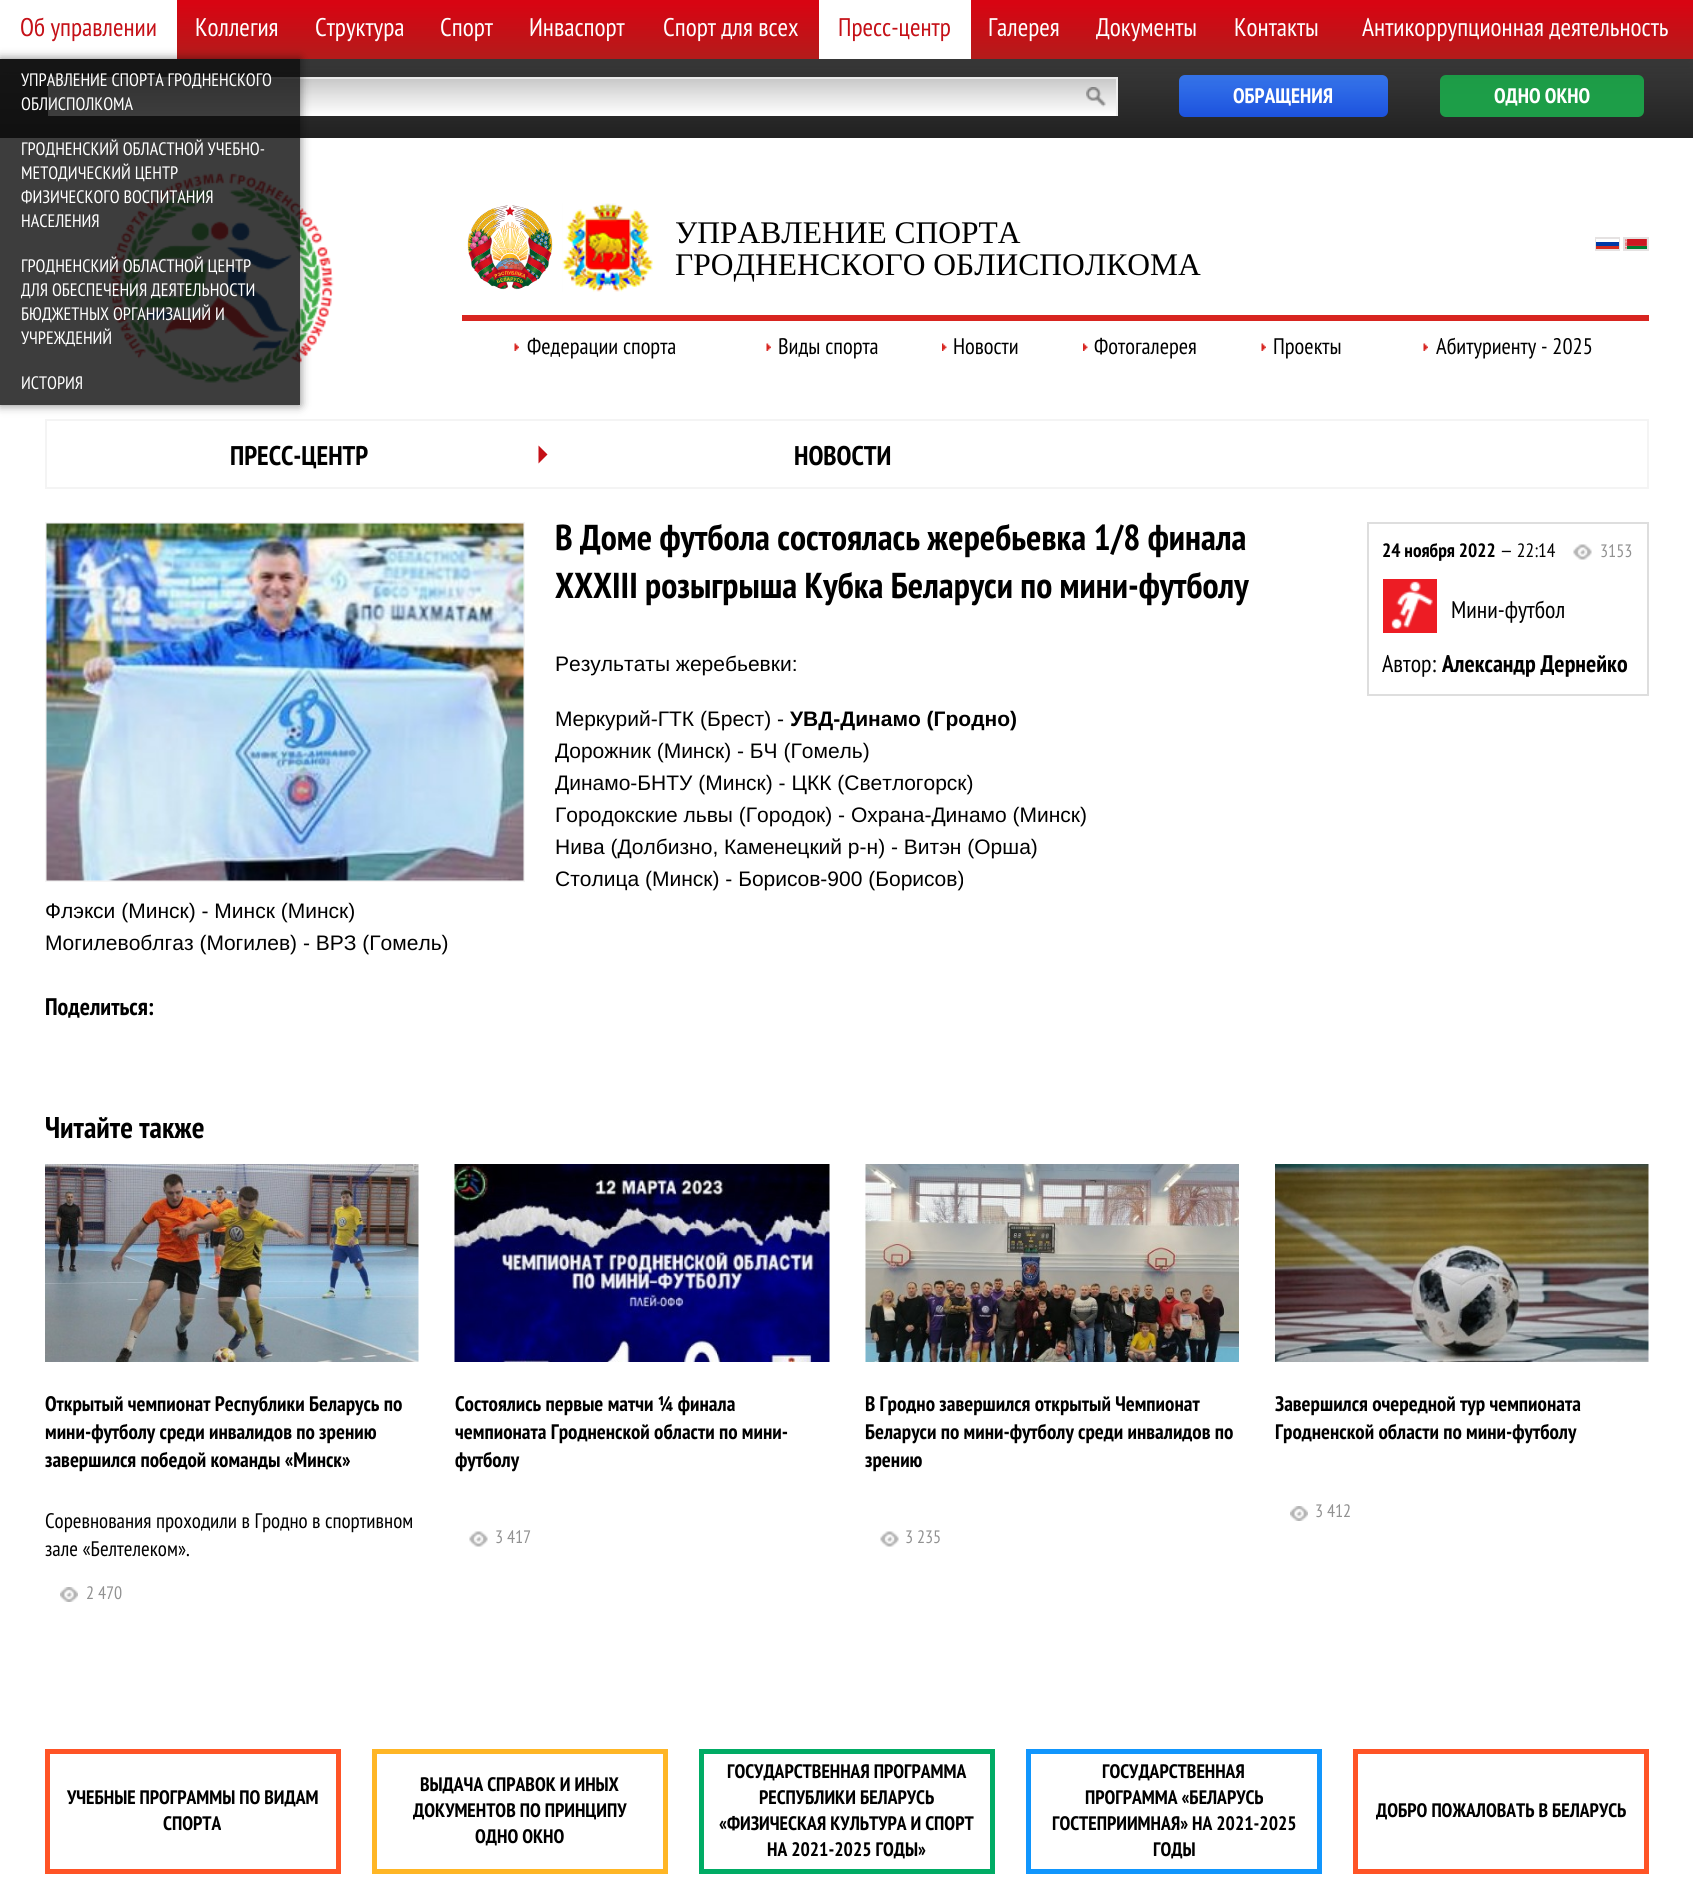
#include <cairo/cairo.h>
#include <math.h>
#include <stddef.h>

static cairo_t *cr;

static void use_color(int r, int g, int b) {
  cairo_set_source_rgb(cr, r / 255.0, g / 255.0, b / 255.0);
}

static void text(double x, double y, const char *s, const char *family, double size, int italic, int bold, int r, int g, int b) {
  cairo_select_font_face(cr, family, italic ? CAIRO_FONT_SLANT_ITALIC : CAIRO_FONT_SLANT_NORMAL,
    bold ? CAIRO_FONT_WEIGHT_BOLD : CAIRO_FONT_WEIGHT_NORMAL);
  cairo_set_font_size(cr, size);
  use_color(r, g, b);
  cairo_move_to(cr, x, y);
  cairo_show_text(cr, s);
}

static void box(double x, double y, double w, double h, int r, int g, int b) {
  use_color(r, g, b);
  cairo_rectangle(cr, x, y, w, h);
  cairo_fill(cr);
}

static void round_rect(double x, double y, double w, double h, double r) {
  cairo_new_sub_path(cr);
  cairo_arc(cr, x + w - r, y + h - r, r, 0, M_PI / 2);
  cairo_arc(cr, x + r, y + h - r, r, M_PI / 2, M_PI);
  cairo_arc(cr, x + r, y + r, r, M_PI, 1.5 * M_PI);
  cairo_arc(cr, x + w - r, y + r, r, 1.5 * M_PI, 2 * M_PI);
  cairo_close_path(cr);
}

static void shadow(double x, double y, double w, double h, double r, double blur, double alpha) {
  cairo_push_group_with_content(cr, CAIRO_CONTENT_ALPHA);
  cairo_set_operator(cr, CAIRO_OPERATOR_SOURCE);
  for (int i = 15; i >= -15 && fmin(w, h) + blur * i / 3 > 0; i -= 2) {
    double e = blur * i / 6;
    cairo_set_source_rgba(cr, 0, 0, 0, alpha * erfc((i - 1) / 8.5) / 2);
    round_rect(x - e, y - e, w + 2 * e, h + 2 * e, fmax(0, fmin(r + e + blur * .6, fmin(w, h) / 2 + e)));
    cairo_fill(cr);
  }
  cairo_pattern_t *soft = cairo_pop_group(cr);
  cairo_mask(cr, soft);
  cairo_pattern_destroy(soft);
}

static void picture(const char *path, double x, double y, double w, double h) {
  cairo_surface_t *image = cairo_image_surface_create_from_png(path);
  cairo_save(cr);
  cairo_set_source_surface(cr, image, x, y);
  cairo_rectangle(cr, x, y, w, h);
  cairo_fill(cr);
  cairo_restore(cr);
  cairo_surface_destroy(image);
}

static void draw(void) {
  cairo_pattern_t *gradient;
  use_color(255, 255, 255);
  cairo_paint(cr);
  gradient = cairo_pattern_create_linear(847, 54, 847, 138);
  cairo_pattern_add_color_stop_rgba(gradient, 0.05, 0.231, 0.231, 0.231, 1);
  cairo_pattern_add_color_stop_rgba(gradient, 1, 0.129, 0.129, 0.129, 1);
  cairo_set_source(cr, gradient);
  cairo_pattern_destroy(gradient);
  cairo_rectangle(cr, 0, 59, 1693, 79);
  cairo_fill(cr);
  gradient = cairo_pattern_create_linear(583, 78, 583, 116);
  cairo_pattern_add_color_stop_rgba(gradient, 0.05, 0.804, 0.804, 0.804, 1);
  cairo_pattern_add_color_stop_rgba(gradient, 1, 1, 1, 1, 1);
  cairo_set_source(cr, gradient);
  cairo_pattern_destroy(gradient);
  cairo_rectangle(cr, 50, 79, 1066, 37);
  cairo_fill(cr);
  box(48, 77, 1070, 2, 239, 239, 239);
  box(1116, 77, 2, 39, 239, 239, 239);
  box(48, 77, 2, 39, 239, 239, 239);
  picture("img_01.png", 1086, 87, 20, 20);
  gradient = cairo_pattern_create_linear(1283, 75, 1283, 117);
  cairo_pattern_add_color_stop_rgba(gradient, 0.05, 0.208, 0.455, 0.925, 1);
  cairo_pattern_add_color_stop_rgba(gradient, 1, 0.11, 0.322, 0.867, 1);
  cairo_set_source(cr, gradient);
  cairo_pattern_destroy(gradient);
  round_rect(1179, 75, 209, 42, 6);
  cairo_fill(cr);
  use_color(29, 158, 72);
  round_rect(1440, 75, 204, 42, 6);
  cairo_fill(cr);
  use_color(0, 0, 0);
  shadow(0, 8, 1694, 58, 0, 15, 0.1);
  gradient = cairo_pattern_create_linear(847, 0, 847, 59);
  cairo_pattern_add_color_stop_rgba(gradient, 0.05, 0.847, 0.016, 0.071, 1);
  cairo_pattern_add_color_stop_rgba(gradient, 1, 0.702, 0.11, 0.106, 1);
  cairo_set_source(cr, gradient);
  cairo_pattern_destroy(gradient);
  cairo_rectangle(cr, 177, 0, 1516, 59);
  cairo_fill(cr);
  box(0, 0, 177, 59, 255, 255, 255);
  picture("img_02.png", 110, 172, 224, 211);
  cairo_rectangle(cr, 46, 420, 1602, 68);
  use_color(244, 244, 244);
  cairo_stroke(cr);
  cairo_save(cr);
  cairo_set_fill_rule(cr, CAIRO_FILL_RULE_EVEN_ODD);
  cairo_new_path(cr);
  cairo_move_to(cr, 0, 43);
  cairo_line_to(cr, 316, 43);
  cairo_line_to(cr, 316, 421);
  cairo_line_to(cr, 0, 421);
  cairo_close_path(cr);
  cairo_move_to(cr, 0, 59);
  cairo_line_to(cr, 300, 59);
  cairo_line_to(cr, 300, 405);
  cairo_line_to(cr, 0, 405);
  cairo_close_path(cr);
  cairo_clip(cr);
  use_color(0, 0, 0);
  shadow(0, 59, 300, 346, 0, 5, 0.5);
  cairo_restore(cr);
  cairo_set_source_rgba(cr, 0.051, 0.051, 0.051, 0.8);
  cairo_rectangle(cr, 0, 59, 300, 346);
  cairo_fill(cr);
  box(819, 0, 152, 59, 255, 255, 255);
  picture("img_03.png", 467, 205, 86, 85);
  picture("img_04.png", 562, 203, 91, 89);
  cairo_rectangle(cr, 1596, 238, 23, 12);
  use_color(229, 226, 226);
  cairo_stroke(cr);
  box(1596, 239, 23, 3, 255, 255, 255);
  box(1596, 242, 23, 4, 0, 57, 166);
  box(1596, 246, 23, 3, 213, 43, 30);
  cairo_rectangle(cr, 1624, 238, 24, 12);
  use_color(229, 226, 226);
  cairo_stroke(cr);
  picture("img_05.png", 1625, 239, 22, 10);
  box(462, 315, 1187, 6, 216, 37, 32);
  picture("img_06.png", 514, 343, 5, 8);
  picture("img_07.png", 766, 343, 5, 8);
  picture("img_08.png", 942, 343, 5, 8);
  picture("img_09.png", 1083, 343, 5, 8);
  picture("img_07.png", 1261, 343, 5, 8);
  picture("img_06.png", 1423, 343, 5, 8);
  use_color(197, 16, 23);
  cairo_new_path(cr);
  cairo_move_to(cr, 538.5, 463.5);
  cairo_line_to(cr, 538.5, 445.5);
  cairo_line_to(cr, 547.5, 454.5);
  cairo_close_path(cr);
  cairo_fill(cr);
  cairo_rectangle(cr, 46, 523, 478, 358);
  use_color(244, 244, 244);
  cairo_stroke(cr);
  picture("img_10.png", 46, 523, 478, 358);
  cairo_rectangle(cr, 1368, 523, 280, 172);
  use_color(222, 222, 222);
  cairo_stroke(cr);
  picture("img_11.png", 1573, 544, 19, 16);
  picture("img_12.png", 1383, 579, 54, 54);
  picture("img_13.png", 45, 1164, 374, 198);
  picture("img_14.png", 60, 1587, 18, 15);
  picture("img_15.png", 454, 1164, 376, 198);
  picture("img_11.png", 469, 1531, 19, 16);
  picture("img_16.png", 865, 1164, 374, 198);
  picture("img_11.png", 880, 1531, 19, 16);
  picture("img_17.png", 1275, 1164, 374, 198);
  picture("img_18.png", 1290, 1506, 18, 15);
  cairo_rectangle(cr, 47.5, 1751.5, 291, 120);
  use_color(255, 84, 38);
  cairo_set_line_width(cr, 5);
  cairo_stroke(cr);
  cairo_rectangle(cr, 374.5, 1751.5, 291, 120);
  use_color(255, 182, 37);
  cairo_stroke(cr);
  cairo_rectangle(cr, 701.5, 1751.5, 291, 120);
  use_color(0, 172, 101);
  cairo_stroke(cr);
  cairo_rectangle(cr, 1028.5, 1751.5, 291, 120);
  use_color(17, 150, 253);
  cairo_stroke(cr);
  cairo_rectangle(cr, 1355.5, 1751.5, 291, 120);
  use_color(255, 84, 38);
  cairo_stroke(cr);
  text(20, 36, "Об управлении", "PT Sans Narrow", 25.5, 0, 0, 197, 16, 23);
  text(21, 86, "УПРАВЛЕНИЕ СПОРТА ГРОДНЕНСКОГО", "PT Sans Narrow", 18, 0, 0, 255, 255, 255);
  text(21, 110, "ОБЛИСПОЛКОМА", "PT Sans Narrow", 18, 0, 0, 255, 255, 255);
  text(21, 155, "ГРОДНЕНСКИЙ ОБЛАСТНОЙ УЧЕБНО-", "PT Sans Narrow", 18, 0, 0, 255, 255, 255);
  text(21, 179, "МЕТОДИЧЕСКИЙ ЦЕНТР", "PT Sans Narrow", 18, 0, 0, 255, 255, 255);
  text(21, 203, "ФИЗИЧЕСКОГО ВОСПИТАНИЯ", "PT Sans Narrow", 18, 0, 0, 255, 255, 255);
  text(21, 227, "НАСЕЛЕНИЯ", "PT Sans Narrow", 18, 0, 0, 255, 255, 255);
  text(21, 272, "ГРОДНЕНСКИЙ ОБЛАСТНОЙ ЦЕНТР", "PT Sans Narrow", 18, 0, 0, 255, 255, 255);
  text(21, 296, "ДЛЯ ОБЕСПЕЧЕНИЯ ДЕЯТЕЛЬНОСТИ", "PT Sans Narrow", 18, 0, 0, 255, 255, 255);
  text(21, 320, "БЮДЖЕТНЫХ ОРГАНИЗАЦИЙ И", "PT Sans Narrow", 18, 0, 0, 255, 255, 255);
  text(21, 344, "УЧРЕЖДЕНИЙ", "PT Sans Narrow", 18, 0, 0, 255, 255, 255);
  text(21, 389, "ИСТОРИЯ", "PT Sans Narrow", 18, 0, 0, 255, 255, 255);
  text(315, 36, "Структура", "PT Sans Narrow", 25.5, 0, 0, 255, 255, 255);
  text(440, 36, "Спорт", "PT Sans Narrow", 25.5, 0, 0, 255, 255, 255);
  text(663, 36, "Спорт для всех", "PT Sans Narrow", 25.5, 0, 0, 255, 255, 255);
  text(1362, 36, "Антикоррупционная деятельность", "PT Sans Narrow", 25.5, 0, 0, 255, 255, 255);
  text(195, 36, "Коллегия", "PT Sans Narrow", 25.5, 0, 0, 255, 255, 255);
  text(529, 36, "Инваспорт", "PT Sans Narrow", 25.5, 0, 0, 255, 255, 255);
  text(838, 36, "Пресс-центр", "PT Sans Narrow", 25.5, 0, 0, 197, 16, 23);
  text(988, 36, "Галерея", "PT Sans Narrow", 25.5, 0, 0, 255, 255, 255);
  text(1096, 36, "Документы", "PT Sans Narrow", 25.5, 0, 0, 255, 255, 255);
  text(1234, 36, "Контакты", "PT Sans Narrow", 25.5, 0, 0, 255, 255, 255);
  text(1233, 103, "ОБРАЩЕНИЯ", "PT Sans Narrow", 21, 0, 1, 255, 255, 255);
  text(1494, 103, "ОДНО ОКНО", "PT Sans Narrow", 21, 0, 1, 255, 255, 255);
  text(675, 243, "УПРАВЛЕНИЕ СПОРТА", "Liberation Serif", 31.5, 0, 0, 0, 0, 0);
  text(675, 275, "ГРОДНЕНСКОГО ОБЛИСПОЛКОМА", "Liberation Serif", 31.5, 0, 0, 0, 0, 0);
  text(527, 354, "Федерации спорта", "PT Sans Narrow", 22.5, 0, 0, 0, 0, 0);
  text(778, 354, "Виды спорта", "PT Sans Narrow", 22.5, 0, 0, 0, 0, 0);
  text(953, 354, "Новости", "PT Sans Narrow", 22.5, 0, 0, 0, 0, 0);
  text(1094, 354, "Фотогалерея", "PT Sans Narrow", 22.5, 0, 0, 0, 0, 0);
  text(1273, 354, "Проекты", "PT Sans Narrow", 22.5, 0, 0, 0, 0, 0);
  text(1436, 354, "Абитуриенту - 2025", "PT Sans Narrow", 22.5, 0, 0, 0, 0, 0);
  text(230, 465, "ПРЕСС-ЦЕНТР", "PT Sans Narrow", 27, 0, 1, 0, 0, 0);
  text(794, 465, "НОВОСТИ", "PT Sans Narrow", 27, 0, 1, 0, 0, 0);
  text(555, 550, "В Доме футбола состоялась жеребьевка 1/8 финала", "PT Sans Narrow", 36, 0, 1, 0, 0, 0);
  text(555, 598, "XXXIII розыгрыша Кубка Беларуси по мини-футболу", "PT Sans Narrow", 36, 0, 1, 0, 0, 0);
  text(1382, 557, "24 ноября 2022", "PT Sans Narrow", 19.25, 0, 1, 0, 0, 0);
  text(1500, 557, "— 22:14", "PT Sans Narrow", 19.25, 0, 0, 0, 0, 0);
  text(1600, 557, "3153", "PT Sans Narrow", 18, 0, 0, 145, 145, 145);
  text(1451, 618, "Мини-футбол", "PT Sans Narrow", 24, 0, 0, 0, 0, 0);
  text(1382, 672, "Автор:", "PT Sans Narrow", 24, 0, 0, 0, 0, 0);
  text(1442, 672, "Александр Дернейко", "PT Sans Narrow", 24, 0, 1, 0, 0, 0);
  text(555, 671, "Результаты жеребьевки:", "Liberation Sans", 21, 0, 0, 0, 0, 0);
  text(555, 726, "Меркурий-ГТК (Брест) -", "Liberation Sans", 21, 0, 0, 0, 0, 0);
  text(790, 726, "УВД-Динамо (Гродно)", "Liberation Sans", 21, 0, 1, 0, 0, 0);
  text(555, 758, "Дорожник (Минск) - БЧ (Гомель)", "Liberation Sans", 21, 0, 0, 0, 0, 0);
  text(555, 790, "Динамо-БНТУ (Минск) - ЦКК (Светлогорск)", "Liberation Sans", 21, 0, 0, 0, 0, 0);
  text(555, 822, "Городокские львы (Городок) - Охрана-Динамо (Минск)", "Liberation Sans", 21, 0, 0, 0, 0, 0);
  text(555, 854, "Нива (Долбизно, Каменецкий р-н) - Витэн (Орша)", "Liberation Sans", 21, 0, 0, 0, 0, 0);
  text(555, 886, "Столица (Минск) - Борисов-900 (Борисов)", "Liberation Sans", 21, 0, 0, 0, 0, 0);
  text(45, 918, "Флэкси (Минск) - Минск (Минск)", "Liberation Sans", 21, 0, 0, 0, 0, 0);
  text(45, 950, "Могилевоблгаз (Могилев) - ВРЗ (Гомель)", "Liberation Sans", 21, 0, 0, 0, 0, 0);
  text(45, 1015, "Поделиться:", "PT Sans Narrow", 24, 0, 1, 0, 0, 0);
  text(45, 1138, "Читайте также", "PT Sans Narrow", 30, 0, 1, 0, 0, 0);
  text(45, 1411, "Открытый чемпионат Республики Беларусь по", "PT Sans Narrow", 21, 0, 1, 0, 0, 0);
  text(45, 1439, "мини-футболу среди инвалидов по зрению", "PT Sans Narrow", 21, 0, 1, 0, 0, 0);
  text(45, 1467, "завершился победой команды «Минск»", "PT Sans Narrow", 21, 0, 1, 0, 0, 0);
  text(45, 1528, "Соревнования проходили в Гродно в спортивном", "PT Sans Narrow", 21, 0, 0, 0, 0, 0);
  text(45, 1556, "зале «Белтелеком».", "PT Sans Narrow", 21, 0, 0, 0, 0, 0);
  text(86, 1599, "2 470", "PT Sans Narrow", 18, 0, 0, 145, 145, 145);
  text(455, 1411, "Состоялись первые матчи ¼ финала", "PT Sans Narrow", 21, 0, 1, 0, 0, 0);
  text(455, 1439, "чемпионата Гродненской области по мини-", "PT Sans Narrow", 21, 0, 1, 0, 0, 0);
  text(455, 1467, "футболу", "PT Sans Narrow", 21, 0, 1, 0, 0, 0);
  text(495, 1543, "3 417", "PT Sans Narrow", 18, 0, 0, 145, 145, 145);
  text(865, 1411, "В Гродно завершился открытый Чемпионат", "PT Sans Narrow", 21, 0, 1, 0, 0, 0);
  text(865, 1439, "Беларуси по мини-футболу среди инвалидов по", "PT Sans Narrow", 21, 0, 1, 0, 0, 0);
  text(865, 1467, "зрению", "PT Sans Narrow", 21, 0, 1, 0, 0, 0);
  text(905, 1543, "3 235", "PT Sans Narrow", 18, 0, 0, 145, 145, 145);
  text(1275, 1411, "Завершился очередной тур чемпионата", "PT Sans Narrow", 21, 0, 1, 0, 0, 0);
  text(1275, 1439, "Гродненской области по мини-футболу", "PT Sans Narrow", 21, 0, 1, 0, 0, 0);
  text(1315, 1517, "3 412", "PT Sans Narrow", 18, 0, 0, 145, 145, 145);
  text(67, 1804, "УЧЕБНЫЕ ПРОГРАММЫ ПО ВИДАМ", "PT Sans Narrow", 19.5, 0, 1, 0, 0, 0);
  text(163, 1830, "СПОРТА", "PT Sans Narrow", 19.5, 0, 1, 0, 0, 0);
  text(420, 1791, "ВЫДАЧА СПРАВОК И ИНЫХ", "PT Sans Narrow", 19.5, 0, 1, 0, 0, 0);
  text(413, 1817, "ДОКУМЕНТОВ ПО ПРИНЦИПУ", "PT Sans Narrow", 19.5, 0, 1, 0, 0, 0);
  text(475, 1843, "ОДНО ОКНО", "PT Sans Narrow", 19.5, 0, 1, 0, 0, 0);
  text(727, 1778, "ГОСУДАРСТВЕННАЯ ПРОГРАММА", "PT Sans Narrow", 19.5, 0, 1, 0, 0, 0);
  text(759, 1804, "РЕСПУБЛИКИ БЕЛАРУСЬ", "PT Sans Narrow", 19.5, 0, 1, 0, 0, 0);
  text(719, 1830, "«ФИЗИЧЕСКАЯ КУЛЬТУРА И СПОРТ", "PT Sans Narrow", 19.5, 0, 1, 0, 0, 0);
  text(767, 1856, "НА 2021-2025 ГОДЫ»", "PT Sans Narrow", 19.5, 0, 1, 0, 0, 0);
  text(1102, 1778, "ГОСУДАРСТВЕННАЯ", "PT Sans Narrow", 19.5, 0, 1, 0, 0, 0);
  text(1085, 1804, "ПРОГРАММА «БЕЛАРУСЬ", "PT Sans Narrow", 19.5, 0, 1, 0, 0, 0);
  text(1052, 1830, "ГОСТЕПРИИМНАЯ» НА 2021-2025", "PT Sans Narrow", 19.5, 0, 1, 0, 0, 0);
  text(1153, 1856, "ГОДЫ", "PT Sans Narrow", 19.5, 0, 1, 0, 0, 0);
  text(1376, 1817, "ДОБРО ПОЖАЛОВАТЬ В БЕЛАРУСЬ", "PT Sans Narrow", 19.5, 0, 1, 0, 0, 0);
}

int main(void) {
  cairo_surface_t *surface = cairo_image_surface_create(CAIRO_FORMAT_RGB24, 1693, 1888);
  cr = cairo_create(surface);
  cairo_font_options_t *options = cairo_font_options_create();
  cairo_font_options_set_hint_metrics(options, CAIRO_HINT_METRICS_OFF);
  cairo_font_options_set_hint_style(options, CAIRO_HINT_STYLE_NONE);
  cairo_set_font_options(cr, options);
  cairo_set_miter_limit(cr, 4);
  draw();
  cairo_surface_write_to_png(surface, "out.png");
  cairo_font_options_destroy(options);
  cairo_destroy(cr);
  cairo_surface_destroy(surface);
  return 0;
}
